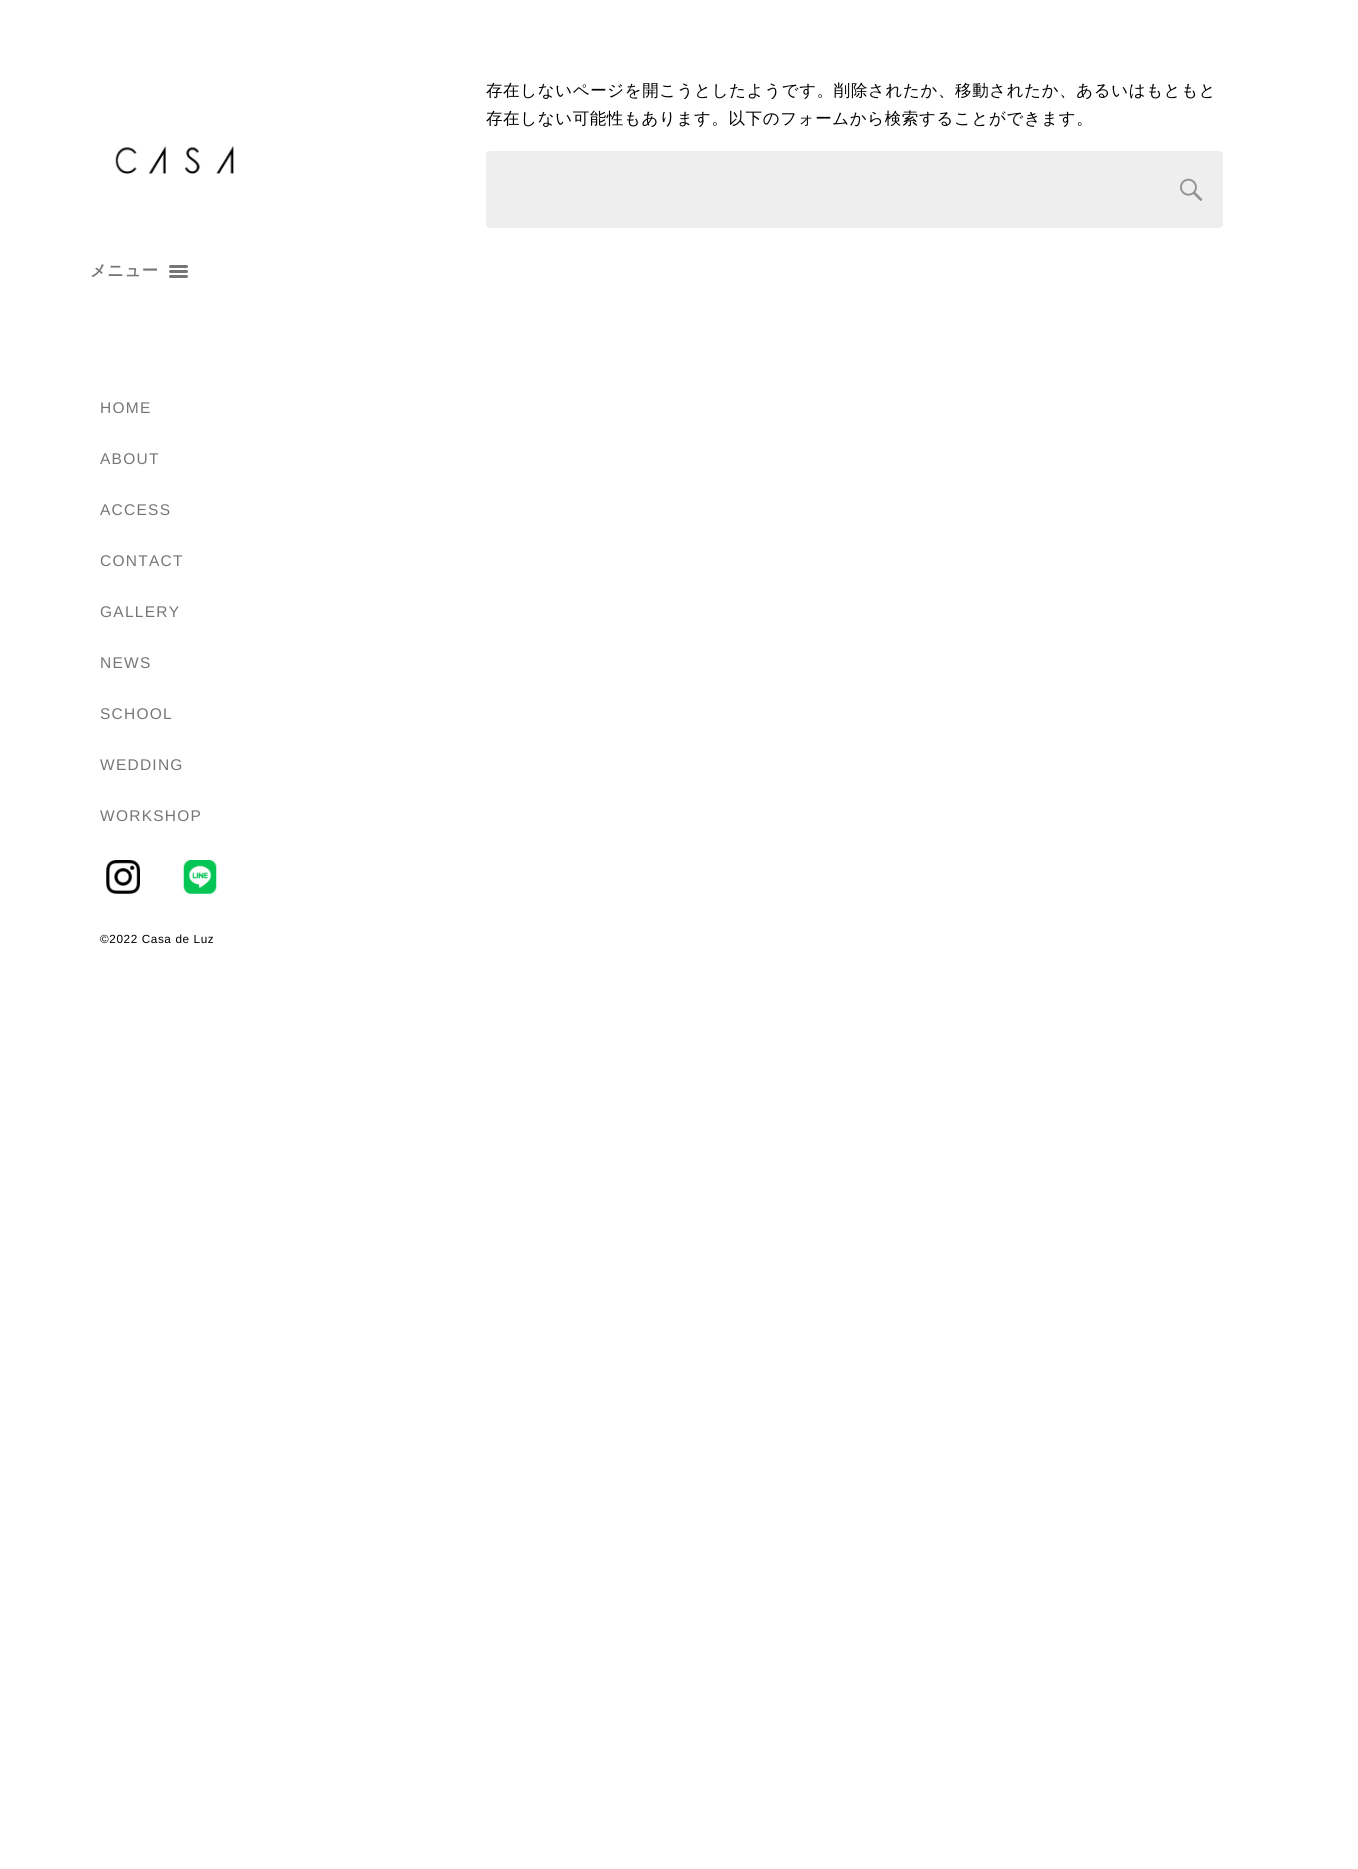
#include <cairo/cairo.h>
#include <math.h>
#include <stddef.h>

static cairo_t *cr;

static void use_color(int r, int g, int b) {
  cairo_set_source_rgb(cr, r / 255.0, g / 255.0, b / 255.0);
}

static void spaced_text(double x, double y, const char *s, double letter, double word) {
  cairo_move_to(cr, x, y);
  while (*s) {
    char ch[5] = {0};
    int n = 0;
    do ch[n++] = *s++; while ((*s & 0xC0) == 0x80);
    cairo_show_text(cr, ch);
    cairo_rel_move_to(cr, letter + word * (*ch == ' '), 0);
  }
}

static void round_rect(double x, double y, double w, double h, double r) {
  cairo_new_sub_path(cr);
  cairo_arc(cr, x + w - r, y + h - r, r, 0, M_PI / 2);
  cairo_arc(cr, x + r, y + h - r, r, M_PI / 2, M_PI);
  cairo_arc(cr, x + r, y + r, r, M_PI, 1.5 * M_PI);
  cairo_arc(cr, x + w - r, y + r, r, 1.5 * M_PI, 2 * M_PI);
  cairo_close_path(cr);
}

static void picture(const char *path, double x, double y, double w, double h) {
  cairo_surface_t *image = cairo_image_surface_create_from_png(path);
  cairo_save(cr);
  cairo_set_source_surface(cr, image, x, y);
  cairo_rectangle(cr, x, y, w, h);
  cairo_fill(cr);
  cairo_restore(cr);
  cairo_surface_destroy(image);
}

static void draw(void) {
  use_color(255, 255, 255);
  cairo_paint(cr);
  use_color(238, 238, 238);
  round_rect(486, 151, 737, 77, 4);
  cairo_fill(cr);
  picture("img_01.png", 1180, 178, 23, 24);
  picture("img_02.png", 115, 146, 119, 28);
  use_color(118, 118, 118);
  round_rect(169, 265, 19, 3, 1.5);
  cairo_fill(cr);
  round_rect(169, 270, 19, 3, 1.5);
  cairo_fill(cr);
  round_rect(169, 275, 19, 3, 1.5);
  cairo_fill(cr);
  picture("img_03.png", 106, 860, 34, 34);
  picture("img_04.png", 183, 860, 34, 34);
  cairo_select_font_face(cr, "WenQuanYi Zen Hei Medium", CAIRO_FONT_SLANT_NORMAL, CAIRO_FONT_WEIGHT_NORMAL);
  cairo_set_font_size(cr, 16.5);
  use_color(0, 0, 0);
  spaced_text(486, 96, "存在しないページを開こうとしたようです。削除されたか、移動されたか、あるいはもともと", 0.6, 0);
  spaced_text(486, 124, "存在しない可能性もあります。以下のフォームから検索することができます。", 0.6, 0);
  cairo_select_font_face(cr, "WenQuanYi Zen Hei", CAIRO_FONT_SLANT_NORMAL, CAIRO_FONT_WEIGHT_BOLD);
  cairo_set_font_size(cr, 16.25);
  use_color(118, 118, 118);
  spaced_text(90, 276, "メニュー", 0.6, 0);
  cairo_select_font_face(cr, "Liberation Sans", CAIRO_FONT_SLANT_NORMAL, CAIRO_FONT_WEIGHT_NORMAL);
  cairo_set_font_size(cr, 15.5);
  spaced_text(100, 413, "HOME", 1.25, 0);
  spaced_text(100, 464, "ABOUT", 1.25, 0);
  spaced_text(100, 515, "ACCESS", 1.25, 0);
  spaced_text(100, 566, "CONTACT", 1.25, 0);
  spaced_text(100, 617, "GALLERY", 1.25, 0);
  spaced_text(100, 668, "NEWS", 1.25, 0);
  spaced_text(100, 719, "SCHOOL", 1.25, 0);
  spaced_text(100, 770, "WEDDING", 1.25, 0);
  spaced_text(100, 821, "WORKSHOP", 1.25, 0);
  cairo_set_font_size(cr, 11.75);
  use_color(0, 0, 0);
  spaced_text(100, 943, "©2022 Casa de Luz", 0.6, 0);
}

int main(void) {
  cairo_surface_t *surface = cairo_image_surface_create(CAIRO_FORMAT_RGB24, 1358, 1869);
  cr = cairo_create(surface);
  cairo_font_options_t *options = cairo_font_options_create();
  cairo_font_options_set_hint_metrics(options, CAIRO_HINT_METRICS_OFF);
  cairo_font_options_set_hint_style(options, CAIRO_HINT_STYLE_NONE);
  cairo_set_font_options(cr, options);
  cairo_set_miter_limit(cr, 4);
  draw();
  cairo_surface_write_to_png(surface, "out.png");
  cairo_font_options_destroy(options);
  cairo_destroy(cr);
  cairo_surface_destroy(surface);
  return 0;
}
